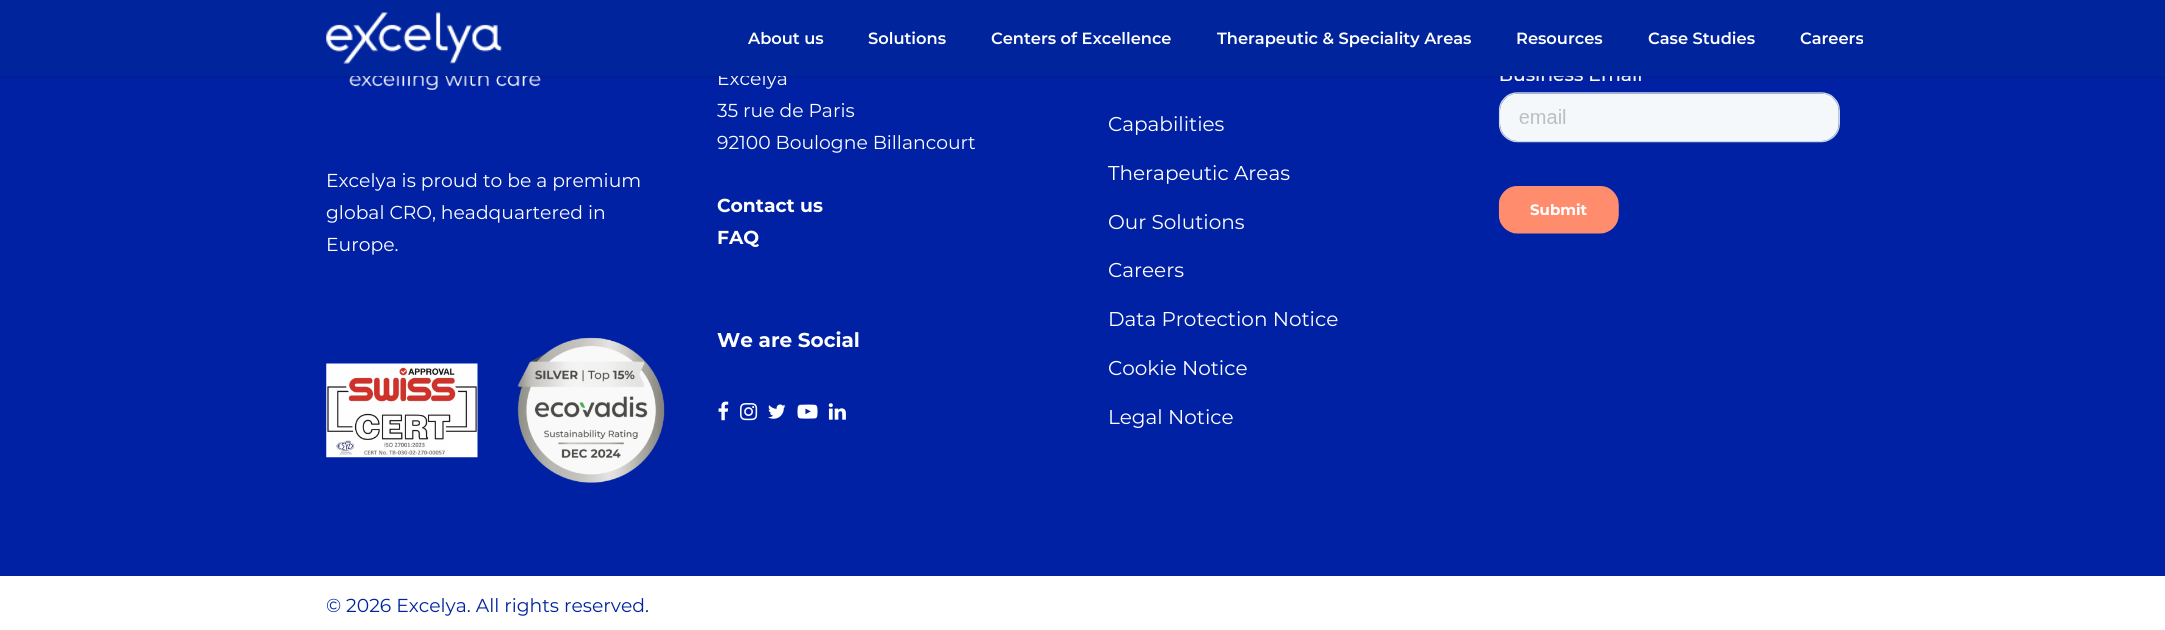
#include <cairo/cairo.h>
#include <math.h>
#include <stddef.h>

static cairo_t *cr;

static void use_color(int r, int g, int b) {
  cairo_set_source_rgb(cr, r / 255.0, g / 255.0, b / 255.0);
}

static void text(double x, double y, const char *s, const char *family, double size, int italic, int bold, int r, int g, int b) {
  cairo_select_font_face(cr, family, italic ? CAIRO_FONT_SLANT_ITALIC : CAIRO_FONT_SLANT_NORMAL,
    bold ? CAIRO_FONT_WEIGHT_BOLD : CAIRO_FONT_WEIGHT_NORMAL);
  cairo_set_font_size(cr, size);
  use_color(r, g, b);
  cairo_move_to(cr, x, y);
  cairo_show_text(cr, s);
}

static void box(double x, double y, double w, double h, int r, int g, int b) {
  use_color(r, g, b);
  cairo_rectangle(cr, x, y, w, h);
  cairo_fill(cr);
}

static void round_rect(double x, double y, double w, double h, double r) {
  cairo_new_sub_path(cr);
  cairo_arc(cr, x + w - r, y + h - r, r, 0, M_PI / 2);
  cairo_arc(cr, x + r, y + h - r, r, M_PI / 2, M_PI);
  cairo_arc(cr, x + r, y + r, r, M_PI, 1.5 * M_PI);
  cairo_arc(cr, x + w - r, y + r, r, 1.5 * M_PI, 2 * M_PI);
  cairo_close_path(cr);
}

static void shadow(double x, double y, double w, double h, double r, double blur, double alpha) {
  cairo_push_group_with_content(cr, CAIRO_CONTENT_ALPHA);
  cairo_set_operator(cr, CAIRO_OPERATOR_SOURCE);
  for (int i = 15; i >= -15 && fmin(w, h) + blur * i / 3 > 0; i -= 2) {
    double e = blur * i / 6;
    cairo_set_source_rgba(cr, 0, 0, 0, alpha * erfc((i - 1) / 8.5) / 2);
    round_rect(x - e, y - e, w + 2 * e, h + 2 * e, fmax(0, fmin(r + e + blur * .6, fmin(w, h) / 2 + e)));
    cairo_fill(cr);
  }
  cairo_pattern_t *soft = cairo_pop_group(cr);
  cairo_mask(cr, soft);
  cairo_pattern_destroy(soft);
}

static void picture(const char *path, double x, double y, double w, double h) {
  cairo_surface_t *image = cairo_image_surface_create_from_png(path);
  cairo_save(cr);
  cairo_set_source_surface(cr, image, x, y);
  cairo_rectangle(cr, x, y, w, h);
  cairo_fill(cr);
  cairo_restore(cr);
  cairo_surface_destroy(image);
}

static void draw(void) {
  use_color(255, 255, 255);
  cairo_paint(cr);
  box(0, 76, 2165, 500, 0, 33, 164);
  picture("img_02.png", 349, 76, 192, 14);
  picture("img_10.png", 1498, 76, 342, 158);
  use_color(0, 0, 0);
  shadow(0, 1, 2165, 77, 0, 1, 0.1);
  picture("img_03.png", 326, 363, 152, 95);
  picture("img_04.png", 517, 337, 148, 146);
  picture("img_05.png", 718, 401, 11, 20);
  picture("img_06.png", 740, 403, 18, 18);
  picture("img_07.png", 768, 404, 18, 15);
  picture("img_08.png", 797, 404, 21, 15);
  picture("img_09.png", 828, 403, 18, 17);
  text(326, 187, "Excelya is proud to be a premium", "Montserrat", 18.75, 0, 0, 255, 255, 255);
  text(326, 219, "global CRO, headquartered in", "Montserrat", 18.75, 0, 0, 255, 255, 255);
  text(326, 251, "Europe.", "Montserrat", 18.75, 0, 0, 255, 255, 255);
  text(717, 85, "Excelya", "Montserrat", 18.75, 0, 0, 255, 255, 255);
  box(0, 0, 2165, 76, 0, 36, 156);
  text(1800, 44, "Careers", "Montserrat SemiBold", 16.25, 0, 0, 255, 255, 255);
  text(1648, 44, "Case Studies", "Montserrat SemiBold", 16.25, 0, 0, 255, 255, 255);
  text(1516, 44, "Resources", "Montserrat SemiBold", 16.25, 0, 0, 255, 255, 255);
  text(1217, 44, "Therapeutic & Speciality Areas", "Montserrat SemiBold", 16.25, 0, 0, 255, 255, 255);
  text(991, 44, "Centers of Excellence", "Montserrat SemiBold", 16.25, 0, 0, 255, 255, 255);
  text(868, 44, "Solutions", "Montserrat SemiBold", 16.25, 0, 0, 255, 255, 255);
  text(748, 44, "About us", "Montserrat SemiBold", 16.25, 0, 0, 255, 255, 255);
  picture("img_01.png", 326, 12, 176, 52);
  text(717, 117, "35 rue de Paris", "Montserrat", 18.75, 0, 0, 255, 255, 255);
  text(717, 149, "92100 Boulogne Billancourt", "Montserrat", 18.75, 0, 0, 255, 255, 255);
  text(717, 212, "Contact us", "Montserrat", 18.75, 0, 1, 255, 255, 255);
  text(717, 244, "FAQ", "Montserrat", 18.75, 0, 1, 255, 255, 255);
  text(717, 347, "We are Social", "Montserrat", 20, 0, 1, 255, 255, 255);
  text(1108, 131, "Capabilities", "Montserrat", 20, 0, 0, 255, 255, 255);
  text(1108, 180, "Therapeutic Areas", "Montserrat", 20, 0, 0, 255, 255, 255);
  text(1108, 229, "Our Solutions", "Montserrat", 20, 0, 0, 255, 255, 255);
  text(1108, 277, "Careers", "Montserrat", 20, 0, 0, 255, 255, 255);
  text(1108, 326, "Data Protection Notice", "Montserrat", 20, 0, 0, 255, 255, 255);
  text(1108, 375, "Cookie Notice", "Montserrat", 20, 0, 0, 255, 255, 255);
  text(1108, 424, "Legal Notice", "Montserrat", 20, 0, 0, 255, 255, 255);
  text(326, 612, "© 2026 Excelya. All rights reserved.", "Montserrat", 18.75, 0, 0, 0, 36, 156);
}

int main(void) {
  cairo_surface_t *surface = cairo_image_surface_create(CAIRO_FORMAT_RGB24, 2165, 630);
  cr = cairo_create(surface);
  cairo_font_options_t *options = cairo_font_options_create();
  cairo_font_options_set_hint_metrics(options, CAIRO_HINT_METRICS_OFF);
  cairo_font_options_set_hint_style(options, CAIRO_HINT_STYLE_NONE);
  cairo_set_font_options(cr, options);
  cairo_set_miter_limit(cr, 4);
  draw();
  cairo_surface_write_to_png(surface, "out.png");
  cairo_font_options_destroy(options);
  cairo_destroy(cr);
  cairo_surface_destroy(surface);
  return 0;
}
